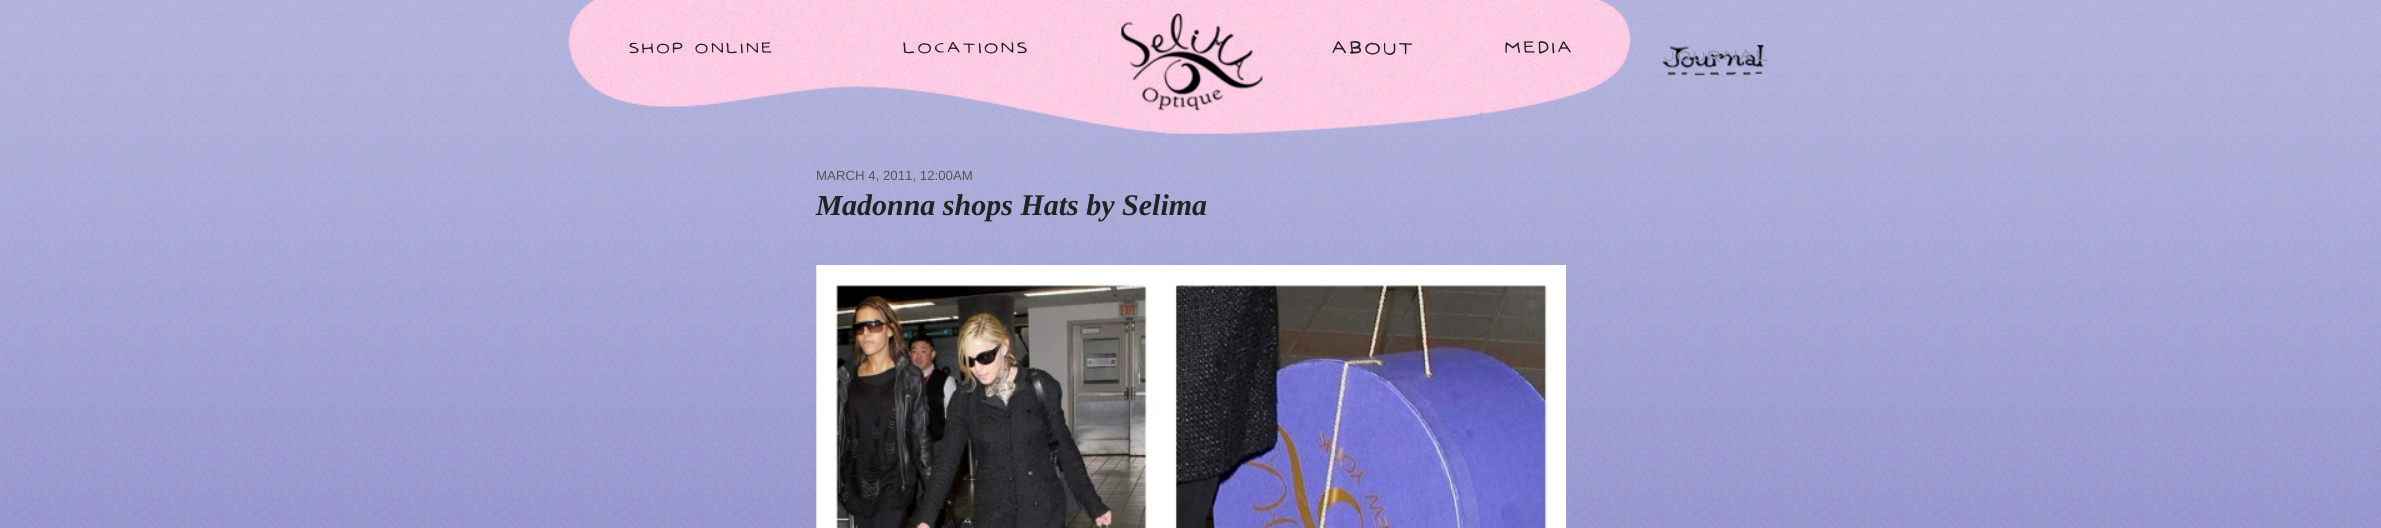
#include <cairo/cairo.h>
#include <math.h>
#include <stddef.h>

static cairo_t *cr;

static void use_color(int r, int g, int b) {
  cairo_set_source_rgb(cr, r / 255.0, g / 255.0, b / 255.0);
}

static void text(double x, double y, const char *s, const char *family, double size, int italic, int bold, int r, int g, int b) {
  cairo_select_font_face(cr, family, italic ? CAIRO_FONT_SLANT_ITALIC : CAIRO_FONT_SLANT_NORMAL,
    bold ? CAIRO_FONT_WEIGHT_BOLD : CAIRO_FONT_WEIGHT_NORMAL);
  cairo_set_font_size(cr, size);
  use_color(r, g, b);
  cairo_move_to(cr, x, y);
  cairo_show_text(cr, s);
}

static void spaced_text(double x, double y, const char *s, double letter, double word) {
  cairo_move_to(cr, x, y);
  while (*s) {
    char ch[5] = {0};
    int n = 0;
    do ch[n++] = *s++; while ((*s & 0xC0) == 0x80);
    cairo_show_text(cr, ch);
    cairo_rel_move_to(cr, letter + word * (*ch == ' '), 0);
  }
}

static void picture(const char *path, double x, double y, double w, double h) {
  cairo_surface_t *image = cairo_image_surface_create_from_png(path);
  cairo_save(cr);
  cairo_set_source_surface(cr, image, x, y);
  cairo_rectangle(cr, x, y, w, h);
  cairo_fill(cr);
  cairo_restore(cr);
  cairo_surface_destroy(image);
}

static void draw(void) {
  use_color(255, 255, 255);
  cairo_paint(cr);
  picture("img_01.png", 0, 0, 2381, 528);
  picture("img_02.png", 0, 0, 2381, 528);
  picture("img_03.png", 568, 0, 1196, 134);
  picture("img_04.png", 1121, 13, 142, 98);
  picture("img_05.png", 815, 196, 29, 19);
  picture("img_06.png", 816, 265, 750, 263);
  cairo_select_font_face(cr, "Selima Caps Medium", CAIRO_FONT_SLANT_NORMAL, CAIRO_FONT_WEIGHT_NORMAL);
  cairo_set_font_size(cr, 25);
  use_color(34, 34, 34);
  spaced_text(629, 53, "SHOP ONLINE", 3.1, 0);
  cairo_set_font_size(cr, 26.25);
  spaced_text(903, 53, "LOCATIONS", 3.1, 0);
  cairo_set_font_size(cr, 30);
  spaced_text(1332, 54, "ABOUT", 3.1, 0);
  cairo_set_font_size(cr, 27.5);
  spaced_text(1505, 53, "MEDIA", 3.1, 0);
  cairo_set_font_size(cr, 27);
  use_color(145, 145, 179);
  spaced_text(1664, 61, "JOURNAL", 3.1, 0);
  text(816, 180, "MARCH 4, 2011, 12:00AM", "Liberation Sans", 13.25, 0, 0, 85, 85, 85);
  text(842, 215, "adonna shops Hats by Selima", "Liberation Serif", 30, 1, 1, 34, 34, 34);
}

int main(void) {
  cairo_surface_t *surface = cairo_image_surface_create(CAIRO_FORMAT_RGB24, 2381, 528);
  cr = cairo_create(surface);
  cairo_font_options_t *options = cairo_font_options_create();
  cairo_font_options_set_hint_metrics(options, CAIRO_HINT_METRICS_OFF);
  cairo_font_options_set_hint_style(options, CAIRO_HINT_STYLE_NONE);
  cairo_set_font_options(cr, options);
  cairo_set_miter_limit(cr, 4);
  draw();
  cairo_surface_write_to_png(surface, "out.png");
  cairo_font_options_destroy(options);
  cairo_destroy(cr);
  cairo_surface_destroy(surface);
  return 0;
}
